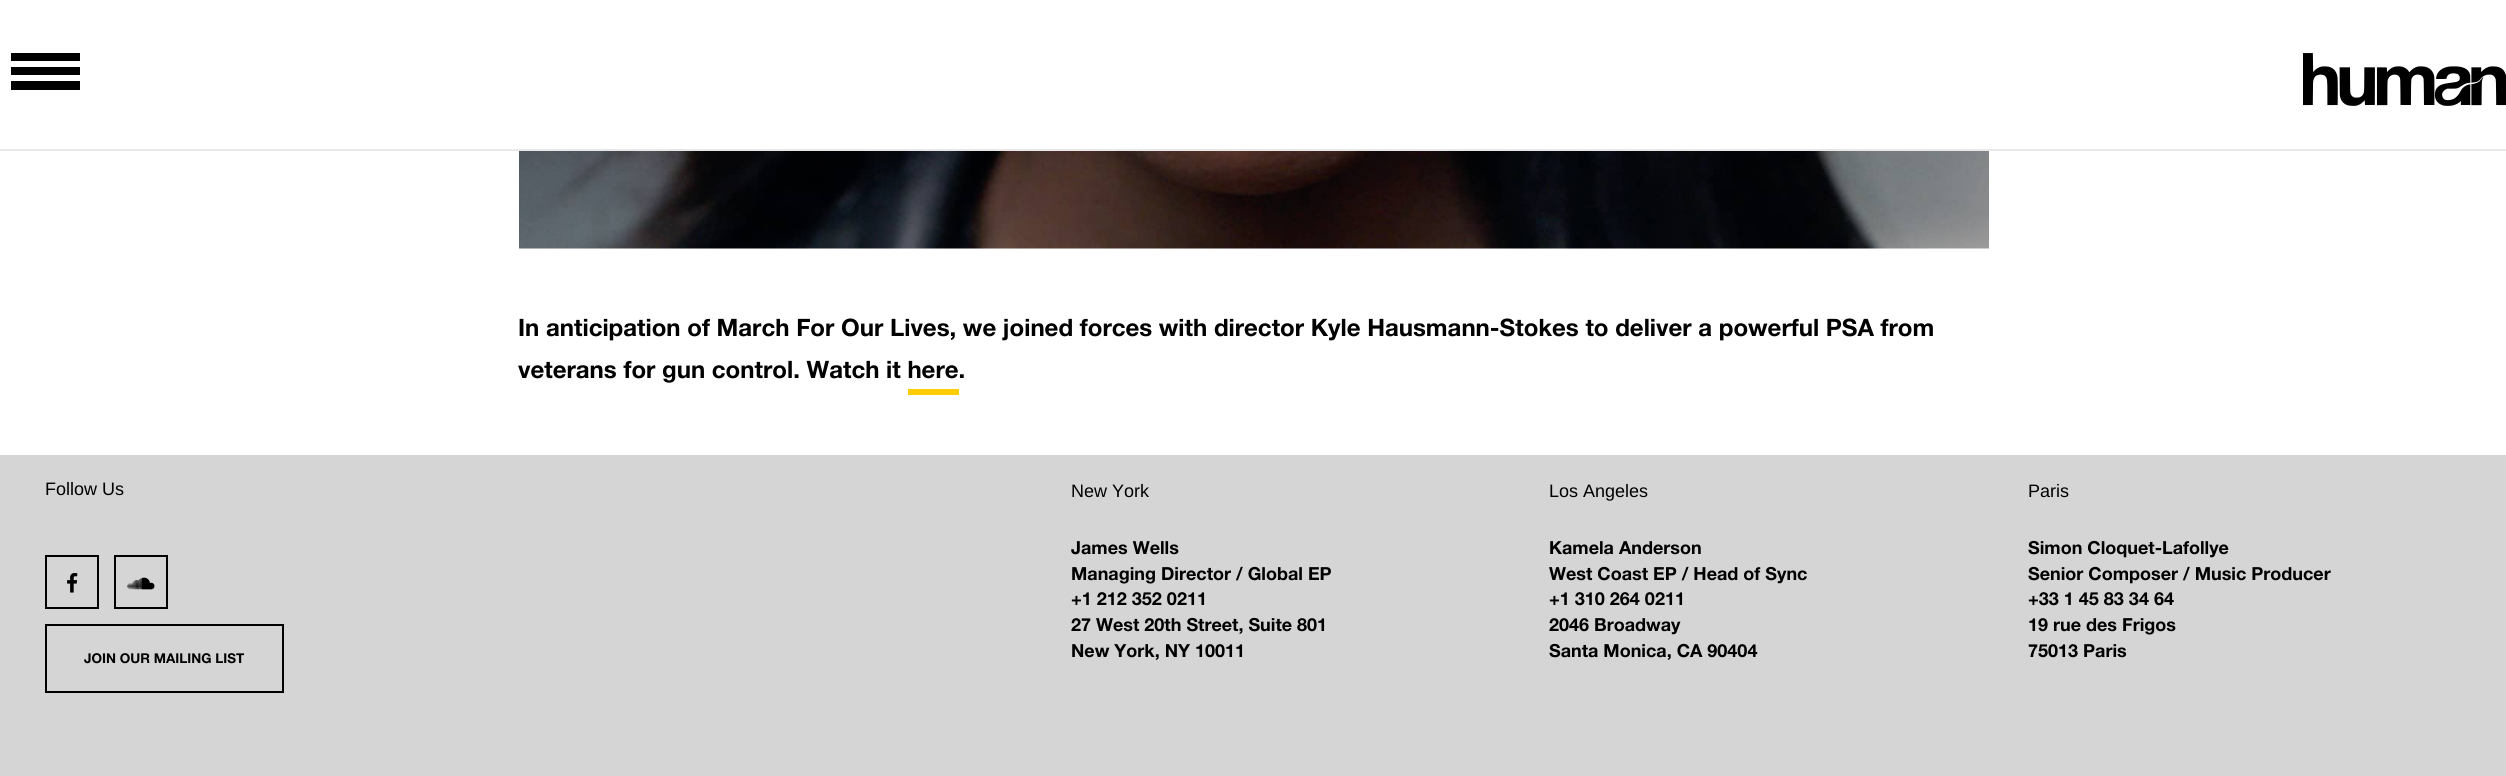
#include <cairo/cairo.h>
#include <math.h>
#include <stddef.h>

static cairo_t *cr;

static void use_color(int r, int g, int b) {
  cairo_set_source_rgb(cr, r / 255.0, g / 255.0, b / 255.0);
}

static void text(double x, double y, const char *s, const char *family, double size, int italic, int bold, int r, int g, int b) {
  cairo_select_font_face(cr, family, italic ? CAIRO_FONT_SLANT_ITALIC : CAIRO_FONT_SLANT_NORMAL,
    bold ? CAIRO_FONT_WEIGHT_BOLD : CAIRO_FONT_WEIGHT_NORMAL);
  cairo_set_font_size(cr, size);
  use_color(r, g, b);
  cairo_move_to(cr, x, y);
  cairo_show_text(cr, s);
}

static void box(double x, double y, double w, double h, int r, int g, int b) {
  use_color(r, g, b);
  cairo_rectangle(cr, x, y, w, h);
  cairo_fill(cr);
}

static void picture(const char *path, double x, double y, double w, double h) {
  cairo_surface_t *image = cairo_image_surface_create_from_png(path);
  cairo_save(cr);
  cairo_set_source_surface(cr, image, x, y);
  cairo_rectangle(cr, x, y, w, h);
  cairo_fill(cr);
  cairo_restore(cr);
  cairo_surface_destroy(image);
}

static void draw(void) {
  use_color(255, 255, 255);
  cairo_paint(cr);
  box(0, 149, 2506, 2, 232, 232, 232);
  box(11, 53, 69, 8, 0, 0, 0);
  box(11, 67, 69, 8, 0, 0, 0);
  box(11, 81, 69, 9, 0, 0, 0);
  picture("img_01.png", 2303, 53, 203, 53);
  picture("img_02.png", 519, 151, 1470, 98);
  box(908, 389, 51, 6, 255, 204, 0);
  box(0, 455, 2506, 321, 213, 213, 213);
  cairo_rectangle(cr, 46, 556, 52, 52);
  use_color(0, 0, 0);
  cairo_stroke(cr);
  picture("img_03.png", 67, 573, 11, 20);
  cairo_rectangle(cr, 115, 556, 52, 52);
  cairo_stroke(cr);
  picture("img_04.png", 127, 577, 28, 13);
  cairo_rectangle(cr, 46, 625, 237, 67);
  cairo_stroke(cr);
  text(518, 336, "In anticipation of March For Our Lives, we joined forces with director Kyle Hausmann-Stokes to deliver a powerful PSA from", "Helvetica Neue", 24, 0, 1, 0, 0, 0);
  text(518, 378, "veterans for gun control. Watch it here.", "Helvetica Neue", 24, 0, 1, 0, 0, 0);
  text(45, 495, "Follow Us", "Liberation Sans", 18, 0, 0, 0, 0, 0);
  text(84, 663, "JOIN OUR MAILING LIST", "Helvetica Neue", 13.5, 0, 1, 0, 0, 0);
  text(1071, 497, "New York", "Liberation Sans", 18, 0, 0, 0, 0, 0);
  text(1071, 554, "James Wells", "Helvetica Neue", 18, 0, 1, 0, 0, 0);
  text(1071, 580, "Managing Director / Global EP", "Helvetica Neue", 18, 0, 1, 0, 0, 0);
  text(1071, 605, "+1 212 352 0211", "Helvetica Neue", 18, 0, 1, 0, 0, 0);
  text(1071, 631, "27 West 20th Street, Suite 801", "Helvetica Neue", 18, 0, 1, 0, 0, 0);
  text(1071, 657, "New York, NY 10011", "Helvetica Neue", 18, 0, 1, 0, 0, 0);
  text(1549, 497, "Los Angeles", "Liberation Sans", 18, 0, 0, 0, 0, 0);
  text(1549, 554, "Kamela Anderson", "Helvetica Neue", 18, 0, 1, 0, 0, 0);
  text(1549, 580, "West Coast EP / Head of Sync", "Helvetica Neue", 18, 0, 1, 0, 0, 0);
  text(1549, 605, "+1 310 264 0211", "Helvetica Neue", 18, 0, 1, 0, 0, 0);
  text(1549, 631, "2046 Broadway", "Helvetica Neue", 18, 0, 1, 0, 0, 0);
  text(1549, 657, "Santa Monica, CA 90404", "Helvetica Neue", 18, 0, 1, 0, 0, 0);
  text(2028, 497, "Paris", "Liberation Sans", 18, 0, 0, 0, 0, 0);
  text(2028, 554, "Simon Cloquet-Lafollye", "Helvetica Neue", 18, 0, 1, 0, 0, 0);
  text(2028, 580, "Senior Composer / Music Producer", "Helvetica Neue", 18, 0, 1, 0, 0, 0);
  text(2028, 605, "+33 1 45 83 34 64", "Helvetica Neue", 18, 0, 1, 0, 0, 0);
  text(2028, 631, "19 rue des Frigos", "Helvetica Neue", 18, 0, 1, 0, 0, 0);
  text(2028, 657, "75013 Paris", "Helvetica Neue", 18, 0, 1, 0, 0, 0);
}

int main(void) {
  cairo_surface_t *surface = cairo_image_surface_create(CAIRO_FORMAT_RGB24, 2506, 776);
  cr = cairo_create(surface);
  cairo_font_options_t *options = cairo_font_options_create();
  cairo_font_options_set_hint_metrics(options, CAIRO_HINT_METRICS_OFF);
  cairo_font_options_set_hint_style(options, CAIRO_HINT_STYLE_NONE);
  cairo_set_font_options(cr, options);
  cairo_set_miter_limit(cr, 4);
  draw();
  cairo_surface_write_to_png(surface, "out.png");
  cairo_font_options_destroy(options);
  cairo_destroy(cr);
  cairo_surface_destroy(surface);
  return 0;
}
